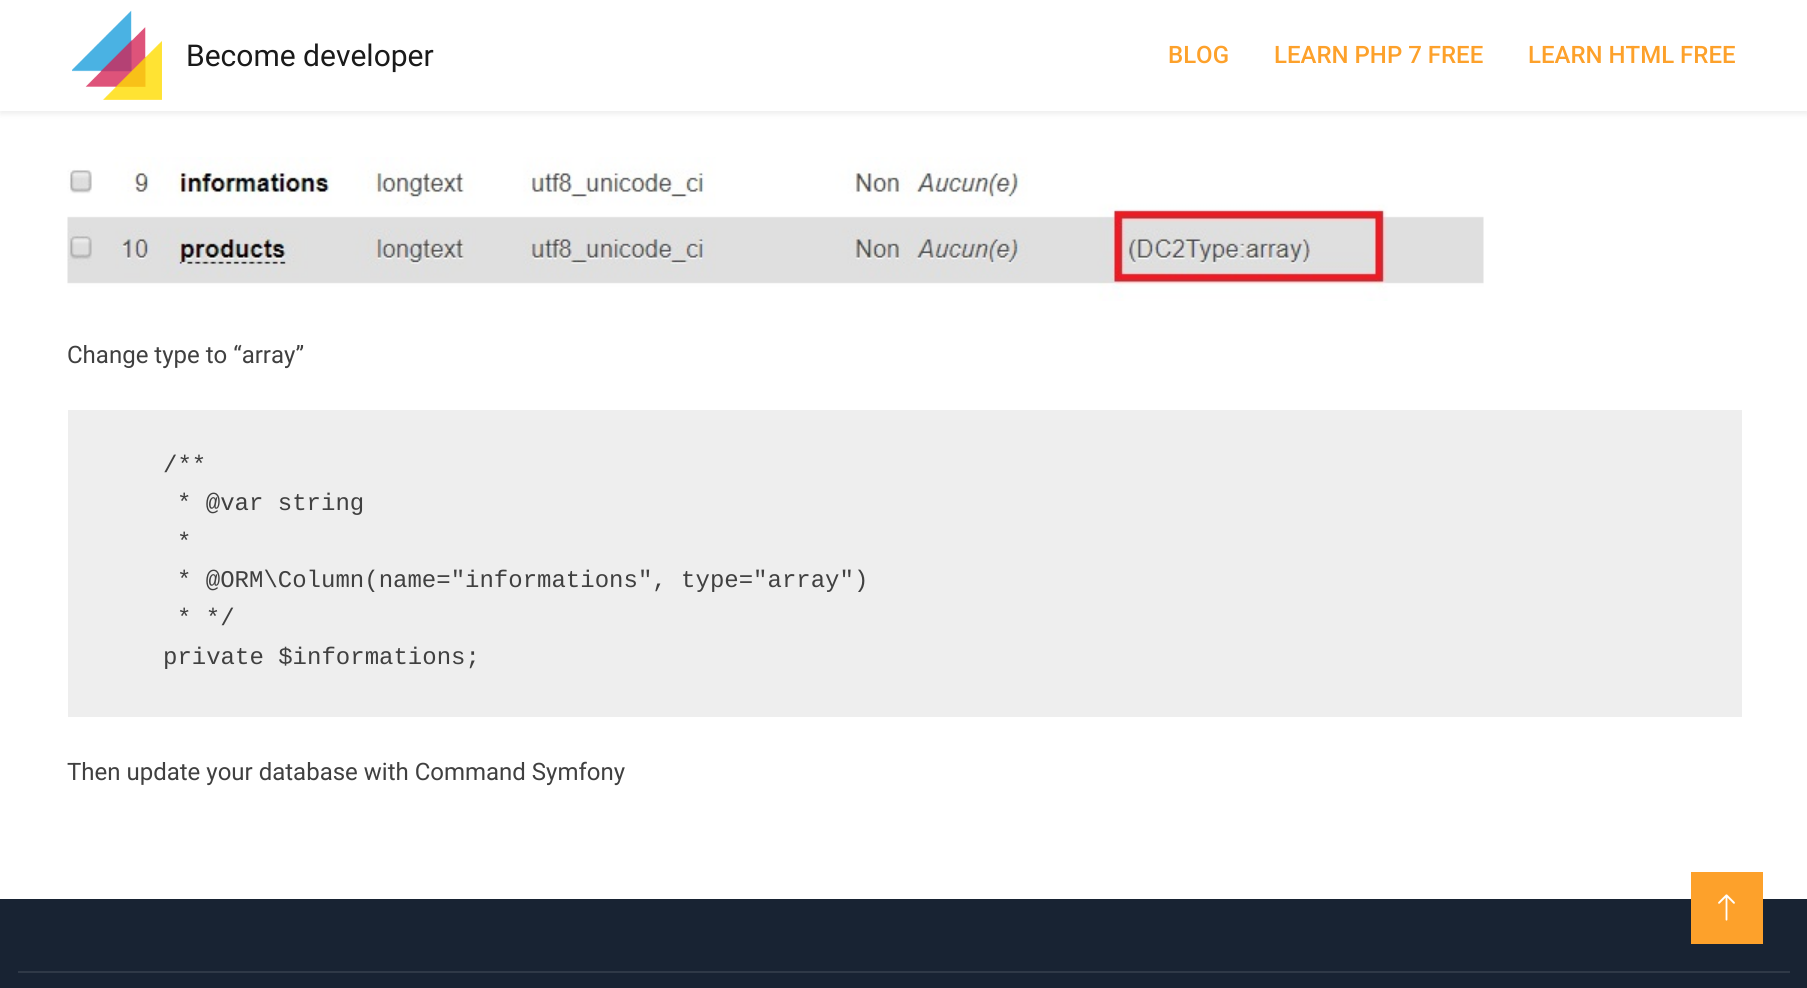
#include <cairo/cairo.h>
#include <math.h>
#include <stddef.h>

static cairo_t *cr;

static void use_color(int r, int g, int b) {
  cairo_set_source_rgb(cr, r / 255.0, g / 255.0, b / 255.0);
}

static void text(double x, double y, const char *s, const char *family, double size, int italic, int bold, int r, int g, int b) {
  cairo_select_font_face(cr, family, italic ? CAIRO_FONT_SLANT_ITALIC : CAIRO_FONT_SLANT_NORMAL,
    bold ? CAIRO_FONT_WEIGHT_BOLD : CAIRO_FONT_WEIGHT_NORMAL);
  cairo_set_font_size(cr, size);
  use_color(r, g, b);
  cairo_move_to(cr, x, y);
  cairo_show_text(cr, s);
}

static void box(double x, double y, double w, double h, int r, int g, int b) {
  use_color(r, g, b);
  cairo_rectangle(cr, x, y, w, h);
  cairo_fill(cr);
}

static void round_rect(double x, double y, double w, double h, double r) {
  cairo_new_sub_path(cr);
  cairo_arc(cr, x + w - r, y + h - r, r, 0, M_PI / 2);
  cairo_arc(cr, x + r, y + h - r, r, M_PI / 2, M_PI);
  cairo_arc(cr, x + r, y + r, r, M_PI, 1.5 * M_PI);
  cairo_arc(cr, x + w - r, y + r, r, 1.5 * M_PI, 2 * M_PI);
  cairo_close_path(cr);
}

static void shadow(double x, double y, double w, double h, double r, double blur, double alpha) {
  cairo_push_group_with_content(cr, CAIRO_CONTENT_ALPHA);
  cairo_set_operator(cr, CAIRO_OPERATOR_SOURCE);
  for (int i = 15; i >= -15 && fmin(w, h) + blur * i / 3 > 0; i -= 2) {
    double e = blur * i / 6;
    cairo_set_source_rgba(cr, 0, 0, 0, alpha * erfc((i - 1) / 8.5) / 2);
    round_rect(x - e, y - e, w + 2 * e, h + 2 * e, fmax(0, fmin(r + e + blur * .6, fmin(w, h) / 2 + e)));
    cairo_fill(cr);
  }
  cairo_pattern_t *soft = cairo_pop_group(cr);
  cairo_mask(cr, soft);
  cairo_pattern_destroy(soft);
}

static void picture(const char *path, double x, double y, double w, double h) {
  cairo_surface_t *image = cairo_image_surface_create_from_png(path);
  cairo_save(cr);
  cairo_set_source_surface(cr, image, x, y);
  cairo_rectangle(cr, x, y, w, h);
  cairo_fill(cr);
  cairo_restore(cr);
  cairo_surface_destroy(image);
}

static void draw(void) {
  use_color(255, 255, 255);
  cairo_paint(cr);
  use_color(0, 0, 0);
  shadow(0, 3, 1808, 111, 0, 3, 0.07);
  box(0, 0, 1807, 111, 255, 255, 255);
  picture("img_01.png", 72, 10, 90, 90);
  picture("img_02.png", 67, 157, 1417, 144);
  box(68, 410, 1674, 307, 238, 238, 238);
  box(0, 899, 1807, 89, 24, 35, 51);
  box(1691, 872, 72, 72, 253, 161, 43);
  picture("img_03.png", 1718, 894, 17, 27);
  box(18, 971, 1772, 2, 47, 57, 71);
  text(186, 66, "Become developer", "Roboto", 30, 0, 0, 26, 26, 26);
  text(1168, 63, "BLOG", "Roboto Medium", 24, 0, 0, 253, 161, 43);
  text(1274, 63, "LEARN PHP 7 FREE", "Roboto Medium", 24, 0, 0, 253, 161, 43);
  text(1528, 63, "LEARN HTML FREE", "Roboto Medium", 24, 0, 0, 253, 161, 43);
  text(67, 363, "Change type to “array”", "Roboto", 24, 0, 0, 64, 64, 64);
  text(163, 472, "/**", "Liberation Mono", 24, 0, 0, 64, 64, 64);
  text(177, 510, "* @var string", "Liberation Mono", 24, 0, 0, 64, 64, 64);
  text(177, 549, "*", "Liberation Mono", 24, 0, 0, 64, 64, 64);
  text(177, 587, "* @ORM\\Column(name=\"informations\", type=\"array\")", "Liberation Mono", 24, 0, 0, 64, 64, 64);
  text(177, 625, "* */", "Liberation Mono", 24, 0, 0, 64, 64, 64);
  text(163, 664, "private $informations;", "Liberation Mono", 24, 0, 0, 64, 64, 64);
  text(67, 780, "Then update your database with Command Symfony", "Roboto", 24, 0, 0, 64, 64, 64);
}

int main(void) {
  cairo_surface_t *surface = cairo_image_surface_create(CAIRO_FORMAT_RGB24, 1807, 988);
  cr = cairo_create(surface);
  cairo_font_options_t *options = cairo_font_options_create();
  cairo_font_options_set_hint_metrics(options, CAIRO_HINT_METRICS_OFF);
  cairo_font_options_set_hint_style(options, CAIRO_HINT_STYLE_NONE);
  cairo_set_font_options(cr, options);
  cairo_set_miter_limit(cr, 4);
  draw();
  cairo_surface_write_to_png(surface, "out.png");
  cairo_font_options_destroy(options);
  cairo_destroy(cr);
  cairo_surface_destroy(surface);
  return 0;
}
